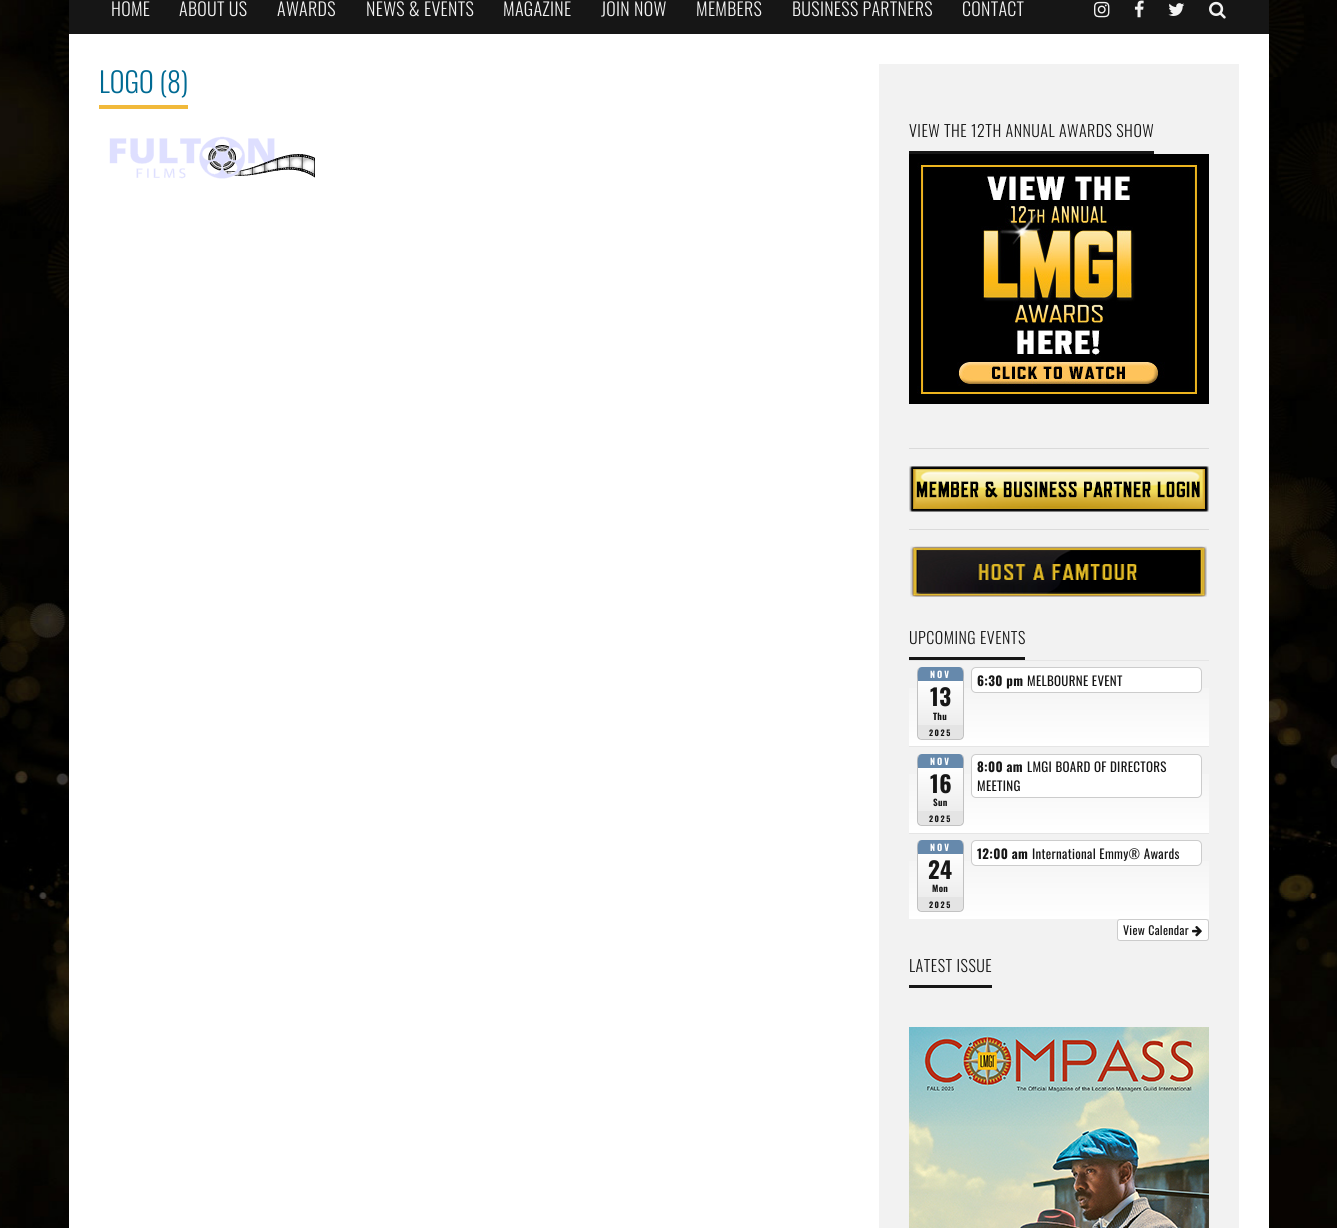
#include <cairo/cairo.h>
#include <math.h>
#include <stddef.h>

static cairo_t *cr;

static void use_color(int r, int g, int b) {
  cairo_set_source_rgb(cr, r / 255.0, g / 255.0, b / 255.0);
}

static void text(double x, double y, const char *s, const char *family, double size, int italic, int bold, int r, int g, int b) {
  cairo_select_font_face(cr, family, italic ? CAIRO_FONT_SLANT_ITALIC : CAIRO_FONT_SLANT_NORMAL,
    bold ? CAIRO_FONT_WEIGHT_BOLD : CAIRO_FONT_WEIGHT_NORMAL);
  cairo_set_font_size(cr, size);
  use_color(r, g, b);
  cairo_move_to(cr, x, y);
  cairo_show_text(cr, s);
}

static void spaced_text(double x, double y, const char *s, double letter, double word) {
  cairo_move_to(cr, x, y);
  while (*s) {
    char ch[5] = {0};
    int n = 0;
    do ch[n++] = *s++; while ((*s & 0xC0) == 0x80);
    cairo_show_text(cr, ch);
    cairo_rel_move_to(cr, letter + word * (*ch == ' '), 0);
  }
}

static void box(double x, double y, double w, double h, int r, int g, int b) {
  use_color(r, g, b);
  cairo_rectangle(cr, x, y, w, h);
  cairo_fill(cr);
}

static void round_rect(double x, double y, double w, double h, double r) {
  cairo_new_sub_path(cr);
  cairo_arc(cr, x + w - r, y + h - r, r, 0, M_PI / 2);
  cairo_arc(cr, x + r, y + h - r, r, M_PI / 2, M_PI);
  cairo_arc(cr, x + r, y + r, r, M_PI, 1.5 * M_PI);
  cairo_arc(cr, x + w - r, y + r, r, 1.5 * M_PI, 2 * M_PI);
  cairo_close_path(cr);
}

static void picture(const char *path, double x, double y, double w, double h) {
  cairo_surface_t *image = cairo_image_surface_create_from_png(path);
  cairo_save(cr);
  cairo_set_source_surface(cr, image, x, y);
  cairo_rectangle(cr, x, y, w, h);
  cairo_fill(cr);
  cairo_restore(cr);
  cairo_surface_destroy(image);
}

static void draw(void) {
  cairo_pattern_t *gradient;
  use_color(255, 255, 255);
  cairo_paint(cr);
  picture("img_01.png", 0, 0, 1337, 1228);
  box(69, 0, 1200, 34, 22, 22, 22);
  picture("img_02.png", 1094, 1, 16, 17);
  picture("img_03.png", 1134, 0, 10, 18);
  picture("img_04.png", 1168, 3, 17, 13);
  picture("img_05.png", 1209, 1, 17, 18);
  box(69, 34, 1200, 1194, 255, 255, 255);
  box(99, 105, 89, 4, 241, 185, 58);
  picture("img_06.png", 109, 136, 206, 43);
  box(879, 64, 360, 1164, 242, 242, 242);
  box(909, 151, 245, 3, 22, 22, 22);
  picture("img_07.png", 909, 154, 300, 250);
  box(909, 448, 300, 1, 218, 218, 218);
  picture("img_08.png", 909, 466, 300, 46);
  box(909, 529, 300, 1, 218, 218, 218);
  picture("img_09.png", 910, 546, 297, 51);
  box(909, 657, 116, 3, 22, 22, 22);
  gradient = cairo_pattern_create_linear(1059, 661, 1059, 746);
  cairo_pattern_add_color_stop_rgba(gradient, 0, 0.949, 0.949, 0.949, 1);
  cairo_pattern_add_color_stop_rgba(gradient, 0.15, 0.949, 0.949, 0.949, 1);
  cairo_pattern_add_color_stop_rgba(gradient, 1, 1, 1, 1, 1);
  cairo_set_source(cr, gradient);
  cairo_pattern_destroy(gradient);
  cairo_rectangle(cr, 909, 688, 300, 58);
  cairo_fill(cr);
  box(909, 660, 300, 1, 229, 229, 229);
  cairo_save(cr);
  round_rect(917, 667, 47, 73, 5);
  cairo_clip(cr);
  gradient = cairo_pattern_create_linear(941, 667, 941, 739);
  cairo_pattern_add_color_stop_rgba(gradient, 0, 1, 1, 1, 1);
  cairo_pattern_add_color_stop_rgba(gradient, 0.16, 1, 1, 1, 1);
  cairo_pattern_add_color_stop_rgba(gradient, 1, 0.906, 0.906, 0.906, 1);
  cairo_set_source(cr, gradient);
  cairo_pattern_destroy(gradient);
  cairo_rectangle(cr, 918, 667, 45, 72);
  cairo_fill(cr);
  cairo_restore(cr);
  use_color(194, 194, 194);
  cairo_set_fill_rule(cr, CAIRO_FILL_RULE_EVEN_ODD);
  cairo_new_path(cr);
  cairo_move_to(cr, 922, 667);
  cairo_line_to(cr, 959, 667);
  cairo_curve_to(cr, 962, 667, 964, 669, 964, 672);
  cairo_line_to(cr, 964, 735);
  cairo_curve_to(cr, 964, 738, 962, 740, 959, 740);
  cairo_line_to(cr, 922, 740);
  cairo_curve_to(cr, 919, 740, 917, 738, 917, 735);
  cairo_line_to(cr, 917, 672);
  cairo_curve_to(cr, 917, 669, 919, 667, 922, 667);
  cairo_close_path(cr);
  cairo_move_to(cr, 922, 667);
  cairo_line_to(cr, 959, 667);
  cairo_curve_to(cr, 961, 667, 963, 669, 963, 672);
  cairo_line_to(cr, 963, 735);
  cairo_curve_to(cr, 963, 737, 961, 739, 959, 739);
  cairo_line_to(cr, 922, 739);
  cairo_curve_to(cr, 920, 739, 918, 737, 918, 735);
  cairo_line_to(cr, 918, 672);
  cairo_curve_to(cr, 918, 669, 920, 667, 922, 667);
  cairo_close_path(cr);
  cairo_fill(cr);
  use_color(102, 137, 172);
  cairo_set_fill_rule(cr, CAIRO_FILL_RULE_WINDING);
  cairo_new_path(cr);
  cairo_move_to(cr, 922, 667);
  cairo_curve_to(cr, 916, 667, 918, 678, 918, 681);
  cairo_line_to(cr, 963, 681);
  cairo_curve_to(cr, 963, 678, 965, 667, 959, 667);
  cairo_close_path(cr);
  cairo_fill(cr);
  use_color(228, 228, 228);
  cairo_new_path(cr);
  cairo_move_to(cr, 918, 725);
  cairo_line_to(cr, 918, 735);
  cairo_curve_to(cr, 918, 737, 920, 739, 922, 739);
  cairo_line_to(cr, 959, 739);
  cairo_curve_to(cr, 961, 739, 963, 737, 963, 735);
  cairo_line_to(cr, 963, 725);
  cairo_close_path(cr);
  cairo_fill(cr);
  use_color(255, 255, 255);
  round_rect(971.5, 667.5, 230, 25, 4.5);
  cairo_fill_preserve(cr);
  use_color(204, 204, 204);
  cairo_set_line_width(cr, 1);
  cairo_stroke(cr);
  gradient = cairo_pattern_create_linear(1059, 747, 1059, 833);
  cairo_pattern_add_color_stop_rgba(gradient, 0, 0.949, 0.949, 0.949, 1);
  cairo_pattern_add_color_stop_rgba(gradient, 0.15, 0.949, 0.949, 0.949, 1);
  cairo_pattern_add_color_stop_rgba(gradient, 1, 1, 1, 1, 1);
  cairo_set_source(cr, gradient);
  cairo_pattern_destroy(gradient);
  cairo_rectangle(cr, 909, 774, 300, 59);
  cairo_fill(cr);
  box(909, 746, 300, 1, 229, 229, 229);
  cairo_save(cr);
  round_rect(917, 754, 47, 72, 5);
  cairo_clip(cr);
  gradient = cairo_pattern_create_linear(941, 754, 941, 825);
  cairo_pattern_add_color_stop_rgba(gradient, 0, 1, 1, 1, 1);
  cairo_pattern_add_color_stop_rgba(gradient, 0.16, 1, 1, 1, 1);
  cairo_pattern_add_color_stop_rgba(gradient, 1, 0.906, 0.906, 0.906, 1);
  cairo_set_source(cr, gradient);
  cairo_pattern_destroy(gradient);
  cairo_rectangle(cr, 918, 754, 45, 71);
  cairo_fill(cr);
  cairo_restore(cr);
  use_color(194, 194, 194);
  cairo_set_fill_rule(cr, CAIRO_FILL_RULE_EVEN_ODD);
  cairo_new_path(cr);
  cairo_move_to(cr, 922, 754);
  cairo_line_to(cr, 959, 754);
  cairo_curve_to(cr, 962, 754, 964, 756, 964, 759);
  cairo_line_to(cr, 964, 821);
  cairo_curve_to(cr, 964, 824, 962, 826, 959, 826);
  cairo_line_to(cr, 922, 826);
  cairo_curve_to(cr, 919, 826, 917, 824, 917, 821);
  cairo_line_to(cr, 917, 759);
  cairo_curve_to(cr, 917, 756, 919, 754, 922, 754);
  cairo_close_path(cr);
  cairo_move_to(cr, 922, 754);
  cairo_line_to(cr, 959, 754);
  cairo_curve_to(cr, 961, 754, 963, 756, 963, 759);
  cairo_line_to(cr, 963, 821);
  cairo_curve_to(cr, 963, 823, 961, 825, 959, 825);
  cairo_line_to(cr, 922, 825);
  cairo_curve_to(cr, 920, 825, 918, 823, 918, 821);
  cairo_line_to(cr, 918, 759);
  cairo_curve_to(cr, 918, 756, 920, 754, 922, 754);
  cairo_close_path(cr);
  cairo_fill(cr);
  use_color(102, 137, 172);
  cairo_set_fill_rule(cr, CAIRO_FILL_RULE_WINDING);
  cairo_new_path(cr);
  cairo_move_to(cr, 922, 754);
  cairo_curve_to(cr, 916, 754, 918, 765, 918, 768);
  cairo_line_to(cr, 963, 768);
  cairo_curve_to(cr, 963, 765, 965, 754, 959, 754);
  cairo_close_path(cr);
  cairo_fill(cr);
  use_color(228, 228, 228);
  cairo_new_path(cr);
  cairo_move_to(cr, 918, 811);
  cairo_line_to(cr, 918, 821);
  cairo_curve_to(cr, 918, 823, 920, 825, 922, 825);
  cairo_line_to(cr, 959, 825);
  cairo_curve_to(cr, 961, 825, 963, 823, 963, 821);
  cairo_line_to(cr, 963, 811);
  cairo_close_path(cr);
  cairo_fill(cr);
  use_color(255, 255, 255);
  round_rect(971.5, 754.5, 230, 43, 4.5);
  cairo_fill_preserve(cr);
  use_color(204, 204, 204);
  cairo_stroke(cr);
  gradient = cairo_pattern_create_linear(1059, 834, 1059, 919);
  cairo_pattern_add_color_stop_rgba(gradient, 0, 0.949, 0.949, 0.949, 1);
  cairo_pattern_add_color_stop_rgba(gradient, 0.15, 0.949, 0.949, 0.949, 1);
  cairo_pattern_add_color_stop_rgba(gradient, 1, 1, 1, 1, 1);
  cairo_set_source(cr, gradient);
  cairo_pattern_destroy(gradient);
  cairo_rectangle(cr, 909, 861, 300, 58);
  cairo_fill(cr);
  box(909, 833, 300, 1, 229, 229, 229);
  cairo_save(cr);
  round_rect(917, 840, 47, 72, 5);
  cairo_clip(cr);
  gradient = cairo_pattern_create_linear(941, 840, 941, 911);
  cairo_pattern_add_color_stop_rgba(gradient, 0, 1, 1, 1, 1);
  cairo_pattern_add_color_stop_rgba(gradient, 0.16, 1, 1, 1, 1);
  cairo_pattern_add_color_stop_rgba(gradient, 1, 0.906, 0.906, 0.906, 1);
  cairo_set_source(cr, gradient);
  cairo_pattern_destroy(gradient);
  cairo_rectangle(cr, 918, 840, 45, 71);
  cairo_fill(cr);
  cairo_restore(cr);
  use_color(194, 194, 194);
  cairo_set_fill_rule(cr, CAIRO_FILL_RULE_EVEN_ODD);
  cairo_new_path(cr);
  cairo_move_to(cr, 922, 840);
  cairo_line_to(cr, 959, 840);
  cairo_curve_to(cr, 962, 840, 964, 842, 964, 845);
  cairo_line_to(cr, 964, 907);
  cairo_curve_to(cr, 964, 910, 962, 912, 959, 912);
  cairo_line_to(cr, 922, 912);
  cairo_curve_to(cr, 919, 912, 917, 910, 917, 907);
  cairo_line_to(cr, 917, 845);
  cairo_curve_to(cr, 917, 842, 919, 840, 922, 840);
  cairo_close_path(cr);
  cairo_move_to(cr, 922, 840);
  cairo_line_to(cr, 959, 840);
  cairo_curve_to(cr, 961, 840, 963, 842, 963, 845);
  cairo_line_to(cr, 963, 907);
  cairo_curve_to(cr, 963, 909, 961, 911, 959, 911);
  cairo_line_to(cr, 922, 911);
  cairo_curve_to(cr, 920, 911, 918, 909, 918, 907);
  cairo_line_to(cr, 918, 845);
  cairo_curve_to(cr, 918, 842, 920, 840, 922, 840);
  cairo_close_path(cr);
  cairo_fill(cr);
  use_color(102, 137, 172);
  cairo_set_fill_rule(cr, CAIRO_FILL_RULE_WINDING);
  cairo_new_path(cr);
  cairo_move_to(cr, 922, 840);
  cairo_curve_to(cr, 916, 840, 918, 851, 918, 854);
  cairo_line_to(cr, 963, 854);
  cairo_curve_to(cr, 963, 851, 965, 840, 959, 840);
  cairo_close_path(cr);
  cairo_fill(cr);
  use_color(228, 228, 228);
  cairo_new_path(cr);
  cairo_move_to(cr, 918, 897);
  cairo_line_to(cr, 918, 907);
  cairo_curve_to(cr, 918, 909, 920, 911, 922, 911);
  cairo_line_to(cr, 959, 911);
  cairo_curve_to(cr, 961, 911, 963, 909, 963, 907);
  cairo_line_to(cr, 963, 897);
  cairo_close_path(cr);
  cairo_fill(cr);
  use_color(255, 255, 255);
  round_rect(971.5, 840.5, 230, 25, 4.5);
  cairo_fill_preserve(cr);
  use_color(204, 204, 204);
  cairo_stroke(cr);
  use_color(255, 255, 255);
  round_rect(1117.5, 919.5, 91, 21, 2.5);
  cairo_fill_preserve(cr);
  use_color(204, 204, 204);
  cairo_stroke(cr);
  picture("img_10.png", 1192, 926, 10, 11);
  box(909, 985, 83, 3, 22, 22, 22);
  picture("img_11.png", 909, 1027, 300, 201);
  cairo_select_font_face(cr, "Oswald Light", CAIRO_FONT_SLANT_NORMAL, CAIRO_FONT_WEIGHT_NORMAL);
  cairo_set_font_size(cr, 18);
  use_color(242, 242, 242);
  spaced_text(111, 16, "HOME", 0.3, 0);
  spaced_text(179, 16, "ABOUT US", 0.3, 0);
  spaced_text(277, 16, "AWARDS", 0.3, 0);
  spaced_text(366, 16, "NEWS & EVENTS", 0.3, 0);
  spaced_text(503, 16, "MAGAZINE", 0.3, 0);
  spaced_text(601, 16, "JOIN NOW", 0.3, 0);
  spaced_text(696, 16, "MEMBERS", 0.3, 0);
  spaced_text(792, 16, "BUSINESS PARTNERS", 0.3, 0);
  spaced_text(962, 16, "CONTACT", 0.3, 0);
  text(99, 93, "LOGO (8)", "Oswald Light", 28, 0, 0, 0, 106, 147);
  cairo_set_font_size(cr, 16);
  use_color(22, 22, 22);
  spaced_text(909, 137, "VIEW THE 12TH ANNUAL AWARDS SHOW", 0.5, 0);
  spaced_text(909, 644, "UPCOMING EVENTS", 0.5, 0);
  cairo_select_font_face(cr, "Oswald", CAIRO_FONT_SLANT_NORMAL, CAIRO_FONT_WEIGHT_BOLD);
  cairo_set_font_size(cr, 9);
  use_color(255, 255, 255);
  spaced_text(930, 678, "NOV", 2, 0);
  cairo_set_font_size(cr, 23);
  use_color(22, 22, 22);
  spaced_text(930, 706, "13", 0.3, 0);
  cairo_set_font_size(cr, 9);
  spaced_text(933, 720, "Thu", 0.3, 0);
  cairo_set_font_size(cr, 8);
  spaced_text(929, 736, "2025", 1.5, 0);
  cairo_set_font_size(cr, 13);
  spaced_text(977, 686, "6:30 pm", 0.3, 0);
  cairo_select_font_face(cr, "Oswald", CAIRO_FONT_SLANT_NORMAL, CAIRO_FONT_WEIGHT_NORMAL);
  spaced_text(1027, 686, "MELBOURNE EVENT", 0.3, 0);
  cairo_select_font_face(cr, "Oswald", CAIRO_FONT_SLANT_NORMAL, CAIRO_FONT_WEIGHT_BOLD);
  cairo_set_font_size(cr, 9);
  use_color(255, 255, 255);
  spaced_text(930, 765, "NOV", 2, 0);
  cairo_set_font_size(cr, 23);
  use_color(22, 22, 22);
  spaced_text(930, 793, "16", 0.3, 0);
  cairo_set_font_size(cr, 9);
  spaced_text(933, 806, "Sun", 0.3, 0);
  cairo_set_font_size(cr, 8);
  spaced_text(929, 822, "2025", 1.5, 0);
  cairo_set_font_size(cr, 13);
  spaced_text(977, 772, "8:00 am", 0.3, 0);
  cairo_select_font_face(cr, "Oswald", CAIRO_FONT_SLANT_NORMAL, CAIRO_FONT_WEIGHT_NORMAL);
  spaced_text(1027, 772, "LMGI BOARD OF DIRECTORS", 0.3, 0);
  spaced_text(977, 791, "MEETING", 0.3, 0);
  cairo_select_font_face(cr, "Oswald", CAIRO_FONT_SLANT_NORMAL, CAIRO_FONT_WEIGHT_BOLD);
  cairo_set_font_size(cr, 9);
  use_color(255, 255, 255);
  spaced_text(930, 851, "NOV", 2, 0);
  cairo_set_font_size(cr, 23);
  use_color(22, 22, 22);
  spaced_text(928, 879, "24", 0.3, 0);
  cairo_set_font_size(cr, 9);
  spaced_text(932, 892, "Mon", 0.3, 0);
  cairo_set_font_size(cr, 8);
  spaced_text(929, 908, "2025", 1.5, 0);
  cairo_set_font_size(cr, 13);
  spaced_text(977, 859, "12:00 am", 0.3, 0);
  cairo_select_font_face(cr, "Oswald", CAIRO_FONT_SLANT_NORMAL, CAIRO_FONT_WEIGHT_NORMAL);
  spaced_text(1032, 859, "International Emmy® Awards", 0.3, 0);
  cairo_set_font_size(cr, 12);
  spaced_text(1123, 935, "View Calendar", 0.3, 0);
  cairo_select_font_face(cr, "Oswald Light", CAIRO_FONT_SLANT_NORMAL, CAIRO_FONT_WEIGHT_NORMAL);
  cairo_set_font_size(cr, 16);
  spaced_text(909, 972, "LATEST ISSUE", 0.5, 0);
}

int main(void) {
  cairo_surface_t *surface = cairo_image_surface_create(CAIRO_FORMAT_RGB24, 1337, 1228);
  cr = cairo_create(surface);
  cairo_font_options_t *options = cairo_font_options_create();
  cairo_font_options_set_hint_metrics(options, CAIRO_HINT_METRICS_OFF);
  cairo_font_options_set_hint_style(options, CAIRO_HINT_STYLE_NONE);
  cairo_set_font_options(cr, options);
  cairo_set_miter_limit(cr, 4);
  draw();
  cairo_surface_write_to_png(surface, "out.png");
  cairo_font_options_destroy(options);
  cairo_destroy(cr);
  cairo_surface_destroy(surface);
  return 0;
}
